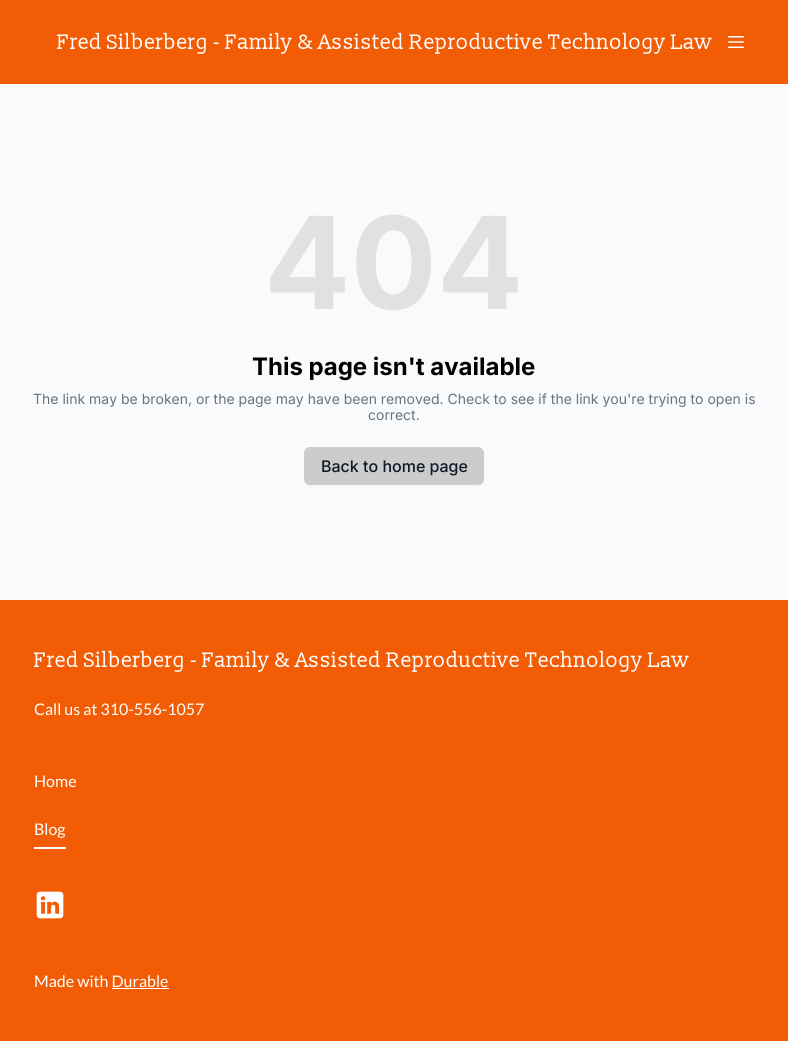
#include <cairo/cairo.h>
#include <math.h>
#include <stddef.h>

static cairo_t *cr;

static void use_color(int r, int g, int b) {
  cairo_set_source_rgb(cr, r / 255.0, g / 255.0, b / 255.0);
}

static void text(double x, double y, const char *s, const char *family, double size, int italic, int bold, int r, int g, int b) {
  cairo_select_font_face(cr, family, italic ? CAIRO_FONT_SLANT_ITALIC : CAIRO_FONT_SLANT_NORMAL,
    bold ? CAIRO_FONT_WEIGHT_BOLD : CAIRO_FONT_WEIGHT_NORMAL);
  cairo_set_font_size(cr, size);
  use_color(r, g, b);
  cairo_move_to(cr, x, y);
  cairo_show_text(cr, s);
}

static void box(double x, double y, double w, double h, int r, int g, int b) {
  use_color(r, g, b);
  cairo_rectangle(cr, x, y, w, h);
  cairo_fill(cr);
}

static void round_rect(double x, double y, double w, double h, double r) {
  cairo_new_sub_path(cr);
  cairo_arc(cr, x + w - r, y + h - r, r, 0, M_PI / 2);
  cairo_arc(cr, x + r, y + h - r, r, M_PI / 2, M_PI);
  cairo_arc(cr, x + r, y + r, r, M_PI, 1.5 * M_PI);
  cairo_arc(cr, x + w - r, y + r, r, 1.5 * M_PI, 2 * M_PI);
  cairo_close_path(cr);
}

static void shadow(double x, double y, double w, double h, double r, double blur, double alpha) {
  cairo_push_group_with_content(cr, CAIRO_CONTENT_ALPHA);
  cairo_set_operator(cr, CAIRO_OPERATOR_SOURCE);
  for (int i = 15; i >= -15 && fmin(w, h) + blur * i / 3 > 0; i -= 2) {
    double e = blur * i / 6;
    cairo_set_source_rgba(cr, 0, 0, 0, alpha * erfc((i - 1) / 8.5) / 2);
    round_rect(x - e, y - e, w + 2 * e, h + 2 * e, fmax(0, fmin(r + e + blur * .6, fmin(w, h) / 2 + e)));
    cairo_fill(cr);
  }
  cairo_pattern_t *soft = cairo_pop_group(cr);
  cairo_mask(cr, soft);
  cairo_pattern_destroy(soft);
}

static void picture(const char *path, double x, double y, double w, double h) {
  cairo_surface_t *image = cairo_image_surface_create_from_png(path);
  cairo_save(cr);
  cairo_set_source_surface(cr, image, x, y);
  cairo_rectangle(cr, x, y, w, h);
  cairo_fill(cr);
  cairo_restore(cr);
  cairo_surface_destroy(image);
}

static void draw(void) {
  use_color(249, 250, 251);
  cairo_paint(cr);
  box(0, 0, 788, 84, 242, 92, 5);
  picture("img_01.png", 728, 36, 16, 12);
  use_color(0, 0, 0);
  shadow(304, 448, 180, 38, 6, 1, 0.05);
  use_color(204, 204, 204);
  round_rect(304, 447, 180, 38, 6);
  cairo_fill(cr);
  box(0, 600, 788, 441, 242, 92, 5);
  box(34, 847, 32, 2, 255, 255, 255);
  picture("img_02.png", 36, 891, 28, 28);
  box(112, 988, 57, 1, 255, 255, 255);
  text(57, 49, "Fred Silberberg - Family & Assisted Reproductive Technology Law", "Slabo 13px", 21, 0, 0, 255, 255, 255);
  text(264, 309, "404", "Inter", 128, 0, 1, 224, 225, 226);
  text(252, 375, "This page isn't available", "Inter", 24, 0, 1, 0, 0, 0);
  text(33, 404, "The link may be broken, or the page may have been removed. Check to see if the link you're trying to open is", "Inter", 14, 0, 0, 107, 114, 128);
  text(368, 420, "correct.", "Inter", 14, 0, 0, 107, 114, 128);
  text(321, 472, "Back to home page", "Inter Medium", 16, 0, 0, 17, 24, 39);
  text(34, 667, "Fred Silberberg - Family & Assisted Reproductive Technology Law", "Slabo 13px", 21, 0, 0, 255, 255, 255);
  text(34, 715, "Call us at 310-556-1057", "Lato", 16, 0, 0, 255, 255, 255);
  text(34, 787, "Home", "Lato", 16, 0, 0, 255, 255, 255);
  text(34, 835, "Blog", "Lato", 16, 0, 0, 255, 255, 255);
  text(34, 987, "Made with Durable", "Lato", 16, 0, 0, 255, 255, 255);
}

int main(void) {
  cairo_surface_t *surface = cairo_image_surface_create(CAIRO_FORMAT_RGB24, 788, 1041);
  cr = cairo_create(surface);
  cairo_font_options_t *options = cairo_font_options_create();
  cairo_font_options_set_hint_metrics(options, CAIRO_HINT_METRICS_OFF);
  cairo_font_options_set_hint_style(options, CAIRO_HINT_STYLE_NONE);
  cairo_set_font_options(cr, options);
  cairo_set_miter_limit(cr, 4);
  draw();
  cairo_surface_write_to_png(surface, "out.png");
  cairo_font_options_destroy(options);
  cairo_destroy(cr);
  cairo_surface_destroy(surface);
  return 0;
}
